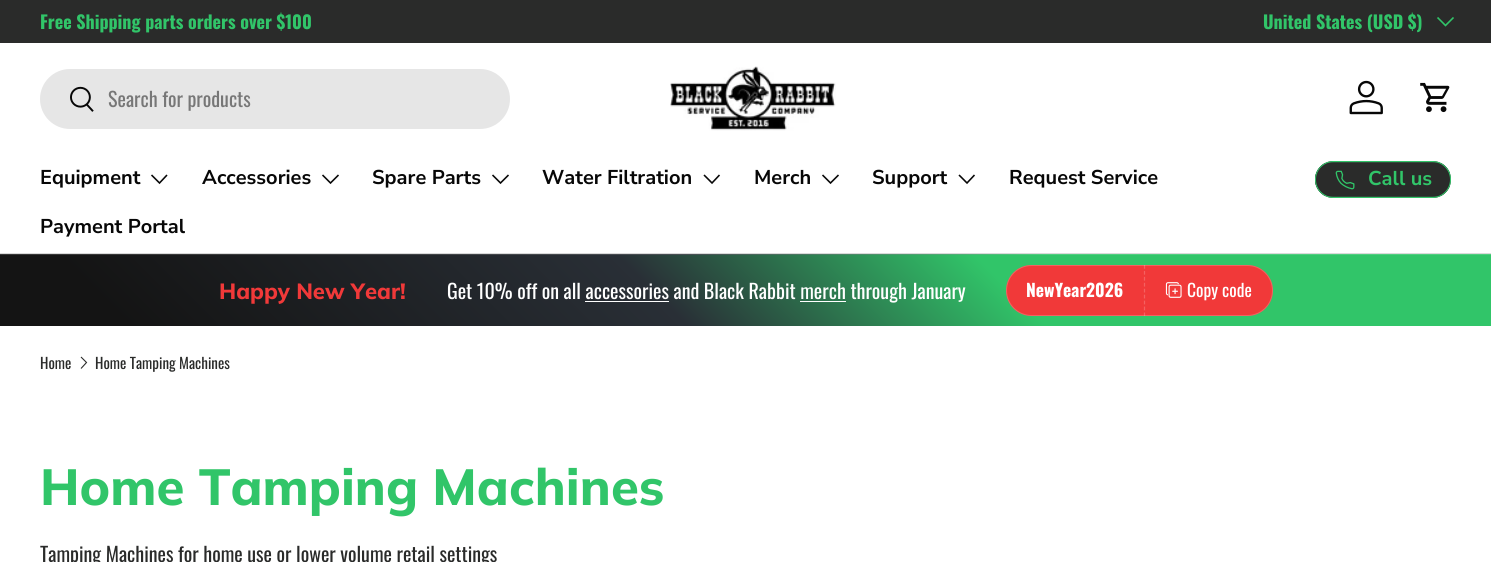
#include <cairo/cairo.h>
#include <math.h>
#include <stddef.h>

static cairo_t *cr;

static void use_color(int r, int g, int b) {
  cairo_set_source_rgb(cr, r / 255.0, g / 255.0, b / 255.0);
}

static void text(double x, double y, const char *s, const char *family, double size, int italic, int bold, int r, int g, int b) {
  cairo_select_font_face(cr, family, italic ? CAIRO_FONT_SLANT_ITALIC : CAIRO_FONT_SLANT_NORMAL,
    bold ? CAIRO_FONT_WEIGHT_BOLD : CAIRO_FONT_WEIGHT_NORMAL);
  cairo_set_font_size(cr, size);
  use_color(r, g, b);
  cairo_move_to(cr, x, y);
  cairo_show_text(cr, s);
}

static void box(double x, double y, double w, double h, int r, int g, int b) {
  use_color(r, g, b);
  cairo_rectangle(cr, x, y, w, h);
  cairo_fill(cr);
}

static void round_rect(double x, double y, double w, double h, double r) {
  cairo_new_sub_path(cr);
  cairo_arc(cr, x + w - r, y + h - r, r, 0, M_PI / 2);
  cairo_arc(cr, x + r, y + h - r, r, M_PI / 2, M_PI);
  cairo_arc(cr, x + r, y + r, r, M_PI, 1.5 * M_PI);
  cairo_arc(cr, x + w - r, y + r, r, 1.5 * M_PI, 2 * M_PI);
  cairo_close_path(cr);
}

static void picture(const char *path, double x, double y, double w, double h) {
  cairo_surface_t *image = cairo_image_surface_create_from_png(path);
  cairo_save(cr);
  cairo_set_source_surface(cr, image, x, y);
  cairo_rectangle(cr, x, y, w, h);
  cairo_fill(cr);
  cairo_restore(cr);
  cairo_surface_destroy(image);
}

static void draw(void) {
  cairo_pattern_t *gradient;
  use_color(255, 255, 255);
  cairo_paint(cr);
  box(0, 0, 1491, 43, 42, 43, 42);
  cairo_new_path(cr);
  cairo_move_to(cr, 1453.5, 17.5);
  cairo_line_to(cr, 1445.5, 25.5);
  cairo_line_to(cr, 1437.5, 17.5);
  use_color(49, 197, 105);
  cairo_set_line_width(cr, 1.6);
  cairo_stroke(cr);
  box(0, 253, 1491, 1, 218, 218, 218);
  use_color(230, 230, 230);
  round_rect(40, 69, 470, 60, 30);
  cairo_fill(cr);
  picture("img_01.png", 70, 86, 24, 26);
  picture("img_02.png", 670, 66, 166, 65);
  picture("img_03.png", 1349, 80, 34, 35);
  picture("img_04.png", 1420, 82, 30, 31);
  cairo_new_path(cr);
  cairo_move_to(cr, 167, 175);
  cairo_line_to(cr, 159.5, 183);
  cairo_line_to(cr, 151.5, 175);
  use_color(7, 7, 7);
  cairo_stroke(cr);
  cairo_new_path(cr);
  cairo_move_to(cr, 338.5, 175);
  cairo_line_to(cr, 330.5, 183);
  cairo_line_to(cr, 322.5, 175);
  cairo_stroke(cr);
  cairo_new_path(cr);
  cairo_move_to(cr, 508.5, 175);
  cairo_line_to(cr, 500.5, 183);
  cairo_line_to(cr, 492.5, 175);
  cairo_stroke(cr);
  cairo_new_path(cr);
  cairo_move_to(cr, 719.5, 175);
  cairo_line_to(cr, 712, 183);
  cairo_line_to(cr, 704, 175);
  cairo_stroke(cr);
  cairo_new_path(cr);
  cairo_move_to(cr, 838.5, 175);
  cairo_line_to(cr, 830.5, 183);
  cairo_line_to(cr, 822.5, 175);
  cairo_stroke(cr);
  cairo_new_path(cr);
  cairo_move_to(cr, 974.5, 175);
  cairo_line_to(cr, 967, 183);
  cairo_line_to(cr, 959, 175);
  cairo_stroke(cr);
  use_color(49, 75, 58);
  round_rect(1315, 161, 136, 37, 18.5);
  cairo_fill(cr);
  cairo_save(cr);
  round_rect(1315, 161, 136, 37, 18.5);
  cairo_clip(cr);
  gradient = cairo_pattern_create_linear(1057, 131, 1442, 227);
  cairo_pattern_add_color_stop_rgba(gradient, 0.6, 0.192, 0.294, 0.227, 1);
  cairo_pattern_add_color_stop_rgba(gradient, 0.6, 0.165, 0.169, 0.165, 1);
  cairo_pattern_add_color_stop_rgba(gradient, 1, 0.165, 0.169, 0.165, 1);
  cairo_set_source(cr, gradient);
  cairo_pattern_destroy(gradient);
  cairo_rectangle(cr, 1315, 163, 135, 33);
  cairo_fill(cr);
  cairo_restore(cr);
  round_rect(1315.5, 161.5, 135, 36, 18);
  use_color(49, 197, 105);
  cairo_set_line_width(cr, 1);
  cairo_stroke(cr);
  picture("img_05.png", 1335, 170, 20, 20);
  gradient = cairo_pattern_create_linear(1136, -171, 355, 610);
  cairo_pattern_add_color_stop_rgba(gradient, 0.33, 0.314, 0.808, 0.502, 1);
  cairo_pattern_add_color_stop_rgba(gradient, 0.56, 0.286, 0.306, 0.329, 1);
  cairo_pattern_add_color_stop_rgba(gradient, 0.92, 0.216, 0.216, 0.216, 1);
  cairo_set_source(cr, gradient);
  cairo_pattern_destroy(gradient);
  cairo_rectangle(cr, 0, 254, 1491, 1);
  cairo_fill(cr);
  gradient = cairo_pattern_create_linear(1136, -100, 355, 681);
  cairo_pattern_add_color_stop_rgba(gradient, 0.33, 0.192, 0.773, 0.412, 1);
  cairo_pattern_add_color_stop_rgba(gradient, 0.56, 0.161, 0.184, 0.212, 1);
  cairo_pattern_add_color_stop_rgba(gradient, 0.92, 0.078, 0.078, 0.078, 1);
  cairo_set_source(cr, gradient);
  cairo_pattern_destroy(gradient);
  cairo_rectangle(cr, 0, 255, 1491, 71);
  cairo_fill(cr);
  box(585, 301, 84, 1, 255, 255, 255);
  box(800, 301, 46, 1, 255, 255, 255);
  use_color(241, 57, 57);
  round_rect(1006, 265, 267, 51, 25.5);
  cairo_fill(cr);
  round_rect(1006.5, 265.5, 266, 50, 25);
  cairo_set_source_rgba(cr, 1, 1, 1, 0.2);
  cairo_stroke(cr);
  cairo_new_path(cr);
  cairo_move_to(cr, 1144.5, 265);
  cairo_line_to(cr, 1144.5, 316);
  cairo_set_line_width(cr, 1.2);
  cairo_set_dash(cr, (double[]){3.75, 2.19}, 2, 0);
  cairo_stroke(cr);
  picture("img_06.png", 1165, 282, 17, 16);
  cairo_new_path(cr);
  cairo_move_to(cr, 81, 357);
  cairo_line_to(cr, 86.5, 362.5);
  cairo_line_to(cr, 81, 368.5);
  use_color(42, 43, 42);
  cairo_set_line_width(cr, 1.1);
  cairo_set_dash(cr, NULL, 0, 0);
  cairo_stroke(cr);
  text(40, 29, "Free Shipping parts orders over $100", "Oswald", 18, 0, 1, 49, 197, 105);
  text(1263, 29, "United States (USD $)", "Oswald", 18, 0, 1, 49, 197, 105);
  text(108, 107, "Search for products", "Oswald", 20, 0, 0, 119, 119, 119);
  text(40, 184, "Equipment", "Nunito Sans", 20, 0, 1, 7, 7, 7);
  text(202, 184, "Accessories", "Nunito Sans", 20, 0, 1, 7, 7, 7);
  text(372, 184, "Spare Parts", "Nunito Sans", 20, 0, 1, 7, 7, 7);
  text(542, 184, "Water Filtration", "Nunito Sans", 20, 0, 1, 7, 7, 7);
  text(754, 184, "Merch", "Nunito Sans", 20, 0, 1, 7, 7, 7);
  text(872, 184, "Support", "Nunito Sans", 20, 0, 1, 7, 7, 7);
  text(1009, 184, "Request Service", "Nunito Sans", 20, 0, 1, 7, 7, 7);
  text(40, 233, "Payment Portal", "Nunito Sans", 20, 0, 1, 7, 7, 7);
  text(1368, 185, "Call us", "Nunito Sans", 20, 0, 1, 49, 197, 105);
  text(219, 299, "Happy New Year!", "Muli ExtraBold", 22, 0, 0, 241, 57, 57);
  text(447, 299, "Get 10% off on all accessories and Black Rabbit merch through January", "Oswald", 20, 0, 0, 255, 255, 255);
  text(1026, 297, "NewYear2026", "Oswald", 17.5, 0, 1, 255, 255, 255);
  text(1187, 297, "Copy code", "Oswald", 17.5, 0, 0, 255, 255, 255);
  text(40, 369, "Home", "Oswald", 15, 0, 0, 42, 43, 42);
  text(95, 369, "Home Tamping Machines", "Oswald", 15, 0, 0, 42, 43, 42);
  text(40, 505, "Home Tamping Machines", "Muli ExtraBold", 50.75, 0, 0, 49, 197, 105);
  text(40, 562, "Tamping Machines for home use or lower volume retail settings", "Oswald", 20, 0, 0, 42, 43, 42);
}

int main(void) {
  cairo_surface_t *surface = cairo_image_surface_create(CAIRO_FORMAT_RGB24, 1491, 562);
  cr = cairo_create(surface);
  cairo_font_options_t *options = cairo_font_options_create();
  cairo_font_options_set_hint_metrics(options, CAIRO_HINT_METRICS_OFF);
  cairo_font_options_set_hint_style(options, CAIRO_HINT_STYLE_NONE);
  cairo_set_font_options(cr, options);
  cairo_set_miter_limit(cr, 4);
  draw();
  cairo_surface_write_to_png(surface, "out.png");
  cairo_font_options_destroy(options);
  cairo_destroy(cr);
  cairo_surface_destroy(surface);
  return 0;
}
